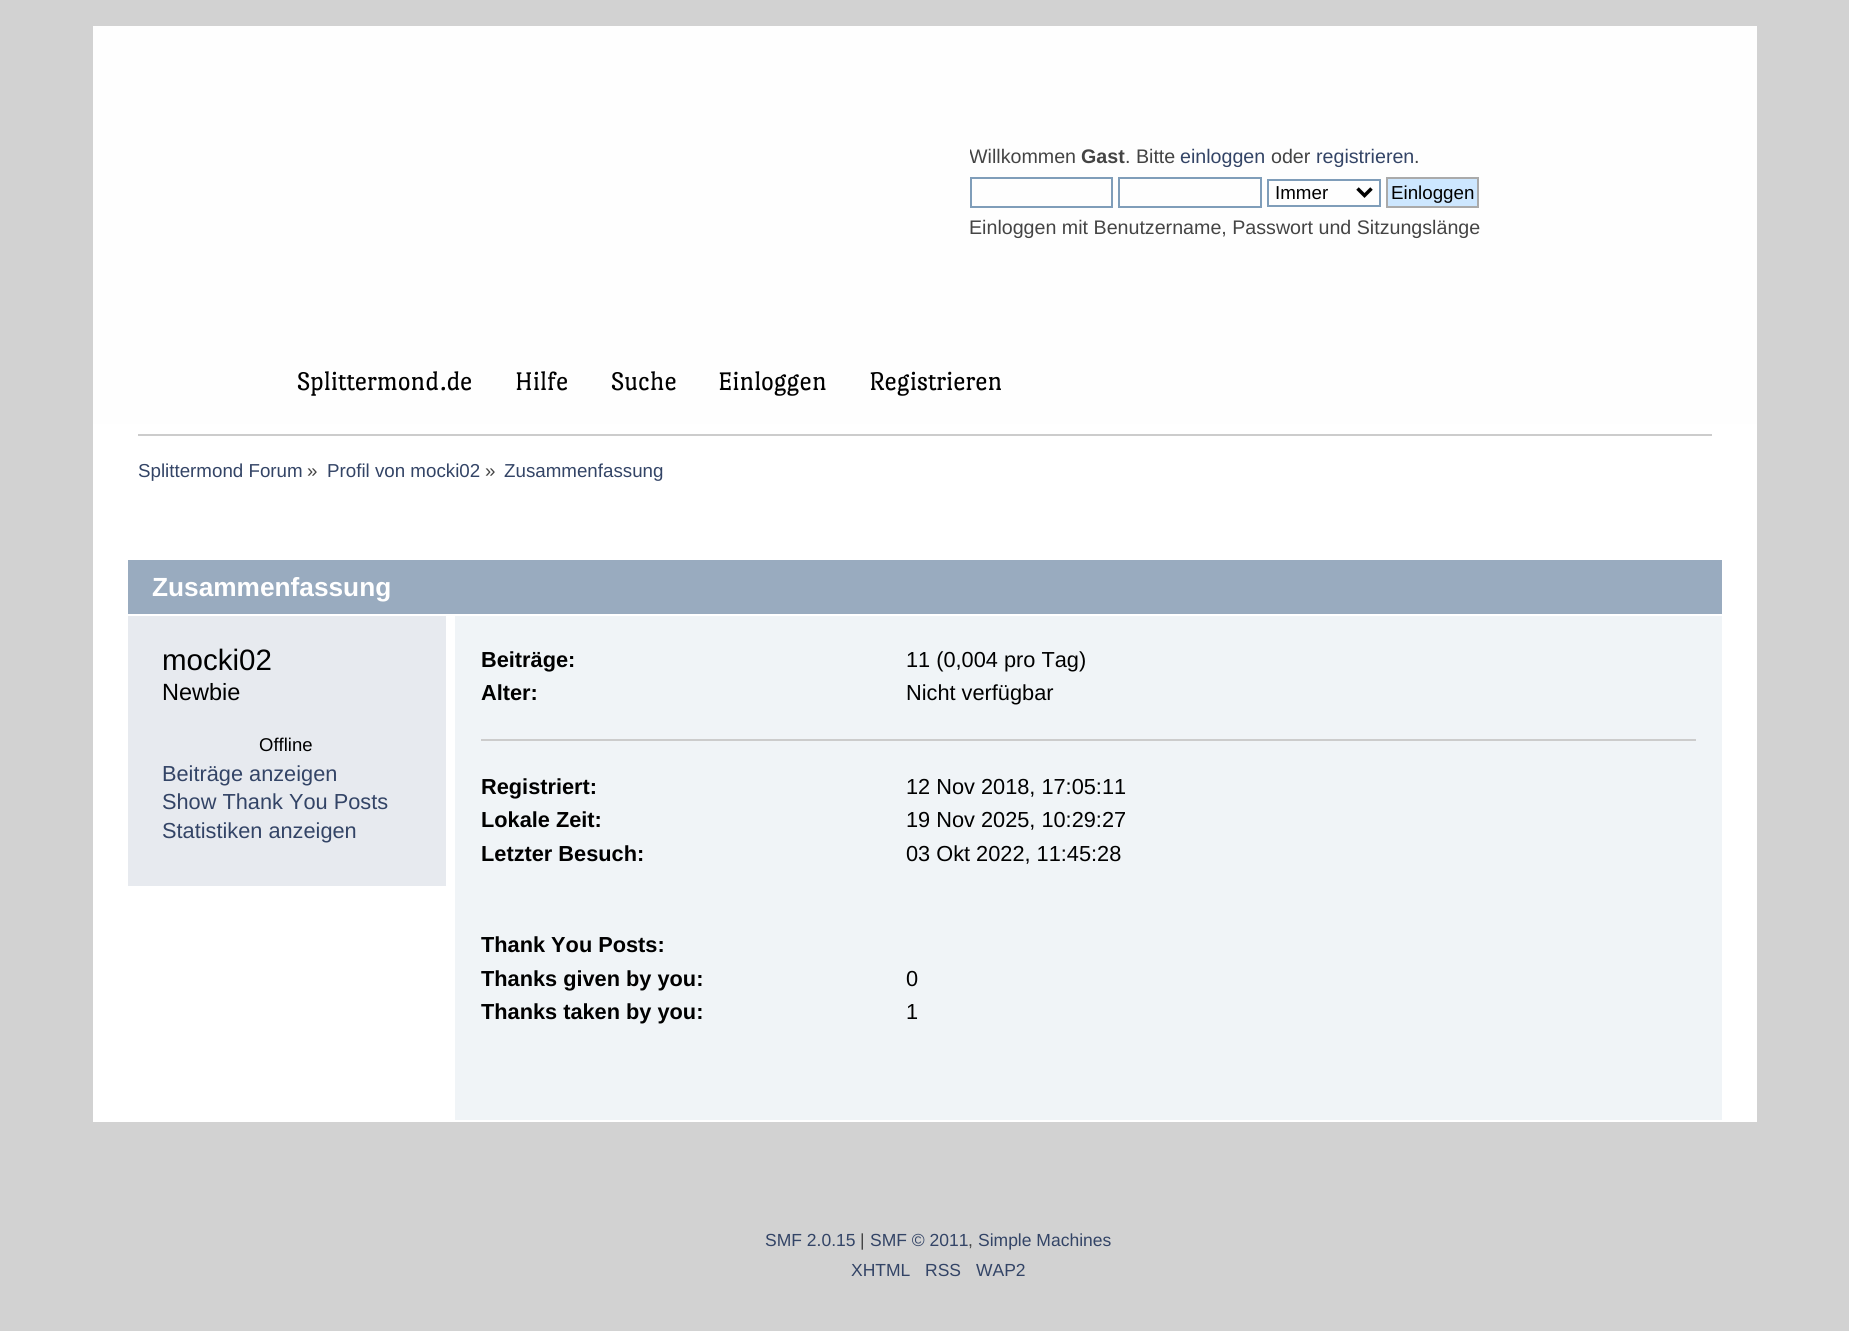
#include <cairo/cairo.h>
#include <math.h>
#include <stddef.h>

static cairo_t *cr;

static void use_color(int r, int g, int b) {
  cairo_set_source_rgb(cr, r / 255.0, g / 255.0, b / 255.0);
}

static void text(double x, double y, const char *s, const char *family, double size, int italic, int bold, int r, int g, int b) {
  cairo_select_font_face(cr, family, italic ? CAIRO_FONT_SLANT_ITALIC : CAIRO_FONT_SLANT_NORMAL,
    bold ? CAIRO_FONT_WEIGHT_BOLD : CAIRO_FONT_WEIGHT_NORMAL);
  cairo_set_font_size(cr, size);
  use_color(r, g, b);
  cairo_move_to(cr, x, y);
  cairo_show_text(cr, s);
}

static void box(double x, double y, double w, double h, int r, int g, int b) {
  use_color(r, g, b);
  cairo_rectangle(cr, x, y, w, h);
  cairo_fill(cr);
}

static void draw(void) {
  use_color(210, 210, 210);
  cairo_paint(cr);
  box(93, 26, 1664, 398, 254, 254, 254);
  cairo_rectangle(cr, 971, 178, 141, 29);
  use_color(127, 157, 185);
  cairo_stroke(cr);
  cairo_rectangle(cr, 1119, 178, 142, 29);
  cairo_stroke(cr);
  cairo_rectangle(cr, 1268, 180, 112, 26);
  cairo_stroke(cr);
  cairo_new_path(cr);
  cairo_move_to(cr, 1357.5, 188.5);
  cairo_line_to(cr, 1364.5, 195.5);
  cairo_line_to(cr, 1371.5, 188.5);
  use_color(0, 0, 0);
  cairo_set_line_width(cr, 3.5);
  cairo_stroke(cr);
  use_color(205, 231, 255);
  cairo_rectangle(cr, 1387, 178, 91, 29);
  cairo_fill_preserve(cr);
  use_color(170, 170, 170);
  cairo_set_line_width(cr, 2);
  cairo_stroke(cr);
  box(93, 424, 1664, 698, 255, 255, 255);
  box(138, 434, 1574, 2, 204, 204, 204);
  box(128, 560, 1594, 54, 153, 171, 191);
  box(128, 616, 318, 270, 231, 234, 239);
  box(455, 616, 1267, 504, 240, 244, 247);
  box(481, 739, 1215, 2, 204, 204, 204);
  cairo_save(cr);
  cairo_rectangle(cr, 970, 137, 743, 110);
  cairo_clip(cr);
  text(969, 163, "Willkommen", "Liberation Sans", 19.65, 0, 0, 68, 68, 68);
  cairo_restore(cr);
  text(1081, 163, "Gast", "Liberation Sans", 19.65, 0, 1, 68, 68, 68);
  text(1125, 163, ". Bitte", "Liberation Sans", 19.65, 0, 0, 68, 68, 68);
  text(1180, 163, "einloggen", "Liberation Sans", 19.65, 0, 0, 51, 68, 102);
  text(1271, 163, "oder", "Liberation Sans", 19.65, 0, 0, 68, 68, 68);
  text(1316, 163, "registrieren", "Liberation Sans", 19.65, 0, 0, 51, 68, 102);
  text(1414, 163, ".", "Liberation Sans", 19.65, 0, 0, 68, 68, 68);
  text(1275, 199, "Immer", "Liberation Sans", 18.75, 0, 0, 0, 0, 0);
  text(1391, 199, "Einloggen", "Liberation Sans", 18.75, 0, 0, 0, 0, 0);
  text(969, 234, "Einloggen mit Benutzername, Passwort und Sitzungslänge", "Liberation Sans", 19.65, 0, 0, 68, 68, 68);
  text(297, 390, "Splittermond.de", "Port Lligat Slab", 27.5, 0, 0, 0, 0, 0);
  text(515, 390, "Hilfe", "Port Lligat Slab", 27.5, 0, 0, 0, 0, 0);
  text(611, 390, "Suche", "Port Lligat Slab", 27.5, 0, 0, 0, 0, 0);
  text(718, 390, "Einloggen", "Port Lligat Slab", 27.5, 0, 0, 0, 0, 0);
  text(869, 390, "Registrieren", "Port Lligat Slab", 27.5, 0, 0, 0, 0, 0);
  text(138, 477, "Splittermond Forum", "Liberation Sans", 18.75, 0, 0, 51, 68, 102);
  text(307, 477, "»", "Liberation Sans", 18.75, 0, 0, 68, 68, 68);
  text(327, 477, "Profil von mocki02", "Liberation Sans", 18.75, 0, 0, 51, 68, 102);
  text(485, 477, "»", "Liberation Sans", 18.75, 0, 0, 68, 68, 68);
  text(504, 477, "Zusammenfassung", "Liberation Sans", 18.75, 0, 0, 51, 68, 102);
  text(152, 596, "Zusammenfassung", "Liberation Sans", 26.25, 0, 1, 255, 255, 255);
  text(162, 670, "mocki02", "Liberation Sans", 29.5, 0, 0, 0, 0, 0);
  text(162, 700, "Newbie", "Liberation Sans", 23.5, 0, 0, 0, 0, 0);
  text(259, 751, "Offline", "Liberation Sans", 18.5, 0, 0, 0, 0, 0);
  text(162, 781, "Beiträge anzeigen", "Liberation Sans", 21.75, 0, 0, 51, 68, 102);
  text(162, 809, "Show Thank You Posts", "Liberation Sans", 21.75, 0, 0, 51, 68, 102);
  text(162, 838, "Statistiken anzeigen", "Liberation Sans", 21.75, 0, 0, 51, 68, 102);
  text(481, 667, "Beiträge:", "Liberation Sans", 21.75, 0, 1, 0, 0, 0);
  text(906, 667, "11 (0,004 pro Tag)", "Liberation Sans", 21.75, 0, 0, 0, 0, 0);
  text(481, 700, "Alter:", "Liberation Sans", 21.75, 0, 1, 0, 0, 0);
  text(906, 700, "Nicht verfügbar", "Liberation Sans", 21.75, 0, 0, 0, 0, 0);
  text(481, 794, "Registriert:", "Liberation Sans", 21.75, 0, 1, 0, 0, 0);
  text(906, 794, "12 Nov 2018, 17:05:11", "Liberation Sans", 21.75, 0, 0, 0, 0, 0);
  text(481, 827, "Lokale Zeit:", "Liberation Sans", 21.75, 0, 1, 0, 0, 0);
  text(906, 827, "19 Nov 2025, 10:29:27", "Liberation Sans", 21.75, 0, 0, 0, 0, 0);
  text(481, 861, "Letzter Besuch:", "Liberation Sans", 21.75, 0, 1, 0, 0, 0);
  text(906, 861, "03 Okt 2022, 11:45:28", "Liberation Sans", 21.75, 0, 0, 0, 0, 0);
  text(481, 952, "Thank You Posts:", "Liberation Sans", 21.75, 0, 1, 0, 0, 0);
  text(481, 986, "Thanks given by you:", "Liberation Sans", 21.75, 0, 1, 0, 0, 0);
  text(906, 986, "0", "Liberation Sans", 21.75, 0, 0, 0, 0, 0);
  text(481, 1019, "Thanks taken by you:", "Liberation Sans", 21.75, 0, 1, 0, 0, 0);
  text(906, 1019, "1", "Liberation Sans", 21.75, 0, 0, 0, 0, 0);
  text(765, 1246, "SMF 2.0.15", "Liberation Sans", 17.5, 0, 0, 51, 68, 102);
  text(860, 1246, "|", "Liberation Sans", 17.5, 0, 0, 68, 68, 68);
  text(870, 1246, "SMF © 2011", "Liberation Sans", 17.5, 0, 0, 51, 68, 102);
  text(968, 1246, ",", "Liberation Sans", 17.5, 0, 0, 68, 68, 68);
  text(978, 1246, "Simple Machines", "Liberation Sans", 17.5, 0, 0, 51, 68, 102);
  text(851, 1276, "XHTML", "Liberation Sans", 17.5, 0, 0, 51, 68, 102);
  text(925, 1276, "RSS", "Liberation Sans", 17.5, 0, 0, 51, 68, 102);
  text(976, 1276, "WAP2", "Liberation Sans", 17.5, 0, 0, 51, 68, 102);
}

int main(void) {
  cairo_surface_t *surface = cairo_image_surface_create(CAIRO_FORMAT_RGB24, 1849, 1331);
  cr = cairo_create(surface);
  cairo_font_options_t *options = cairo_font_options_create();
  cairo_font_options_set_hint_metrics(options, CAIRO_HINT_METRICS_OFF);
  cairo_font_options_set_hint_style(options, CAIRO_HINT_STYLE_NONE);
  cairo_set_font_options(cr, options);
  cairo_set_miter_limit(cr, 4);
  draw();
  cairo_surface_write_to_png(surface, "out.png");
  cairo_font_options_destroy(options);
  cairo_destroy(cr);
  cairo_surface_destroy(surface);
  return 0;
}
